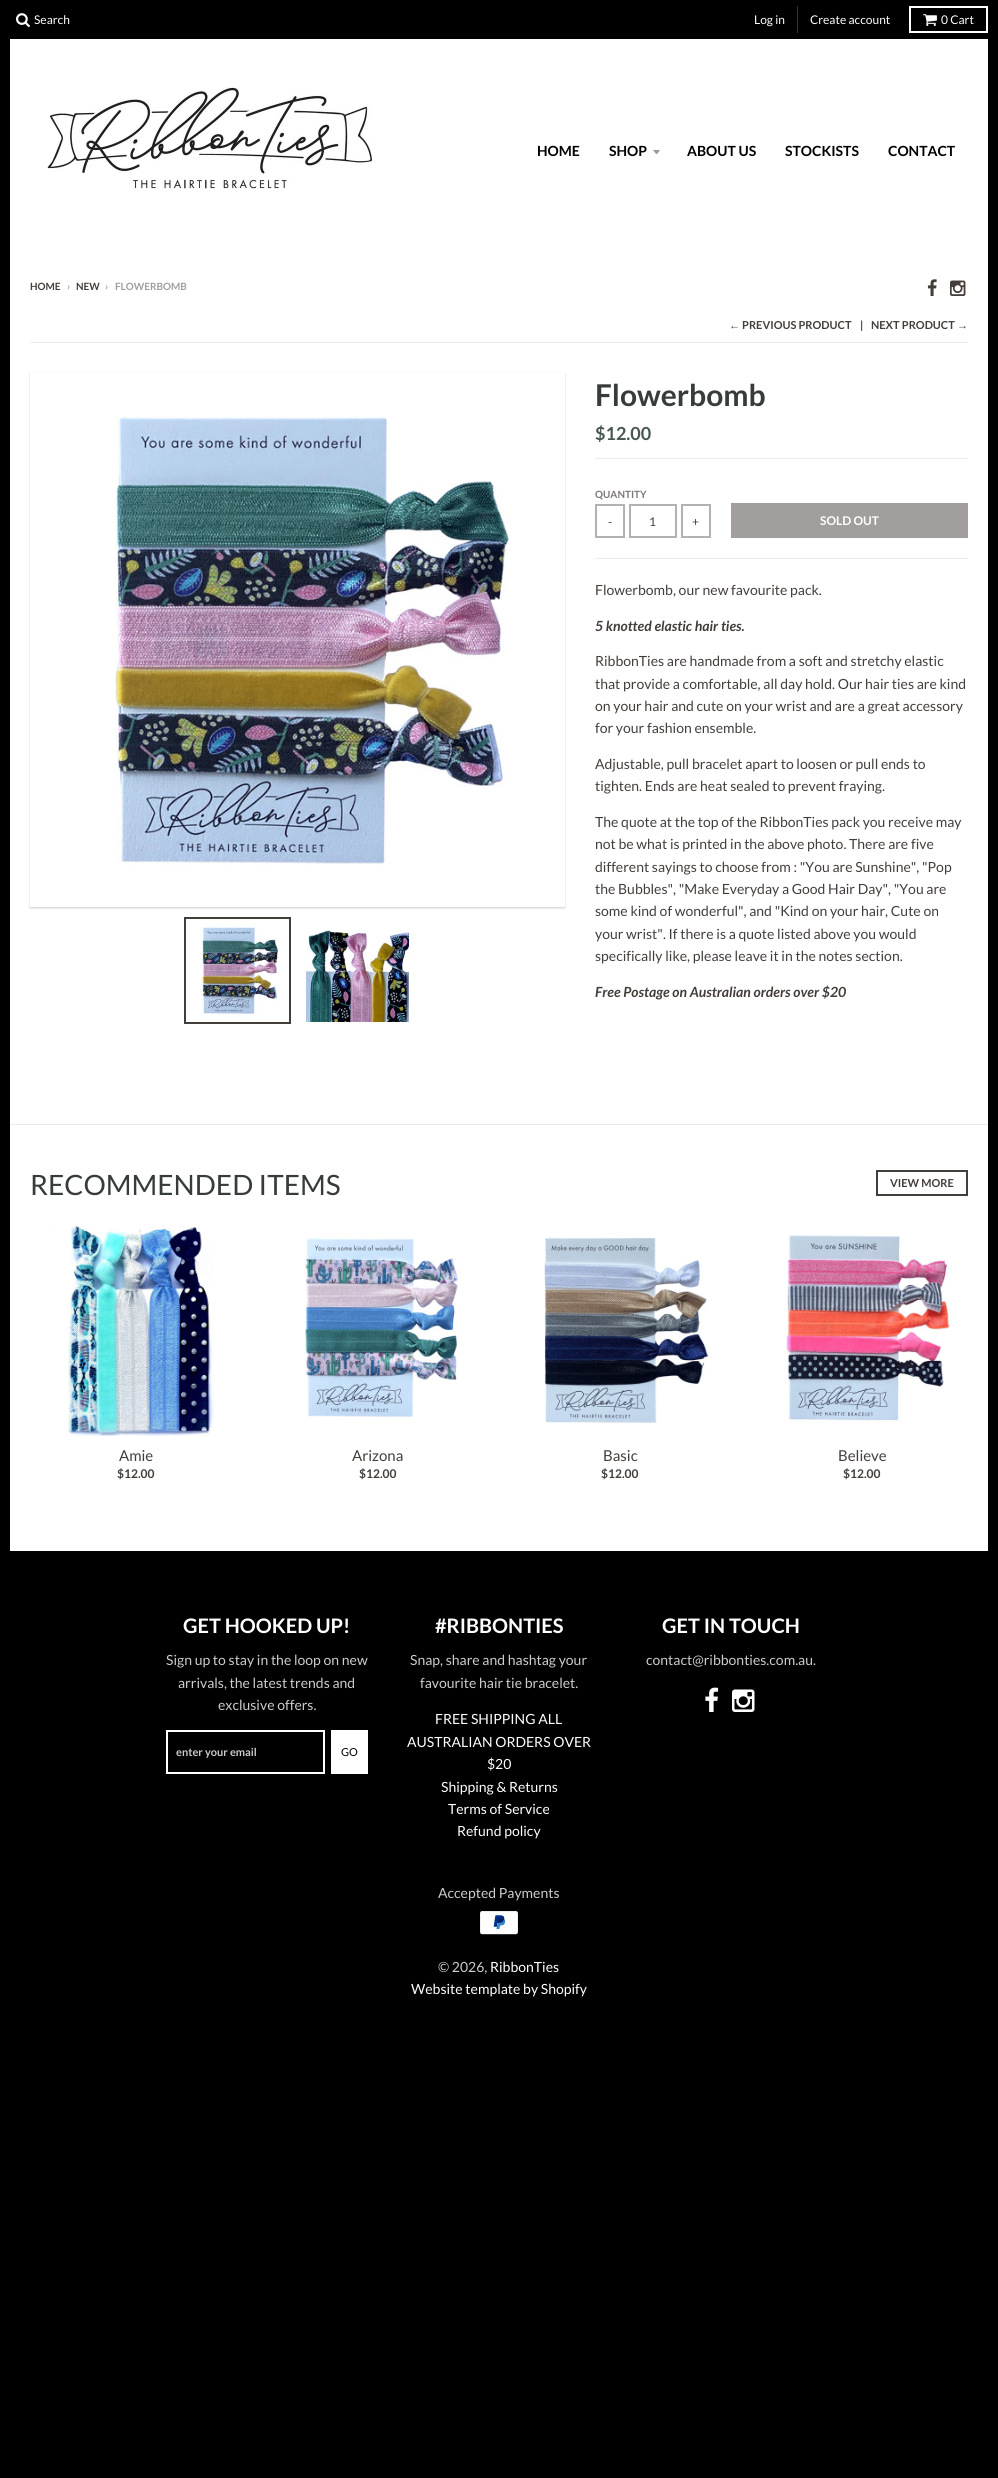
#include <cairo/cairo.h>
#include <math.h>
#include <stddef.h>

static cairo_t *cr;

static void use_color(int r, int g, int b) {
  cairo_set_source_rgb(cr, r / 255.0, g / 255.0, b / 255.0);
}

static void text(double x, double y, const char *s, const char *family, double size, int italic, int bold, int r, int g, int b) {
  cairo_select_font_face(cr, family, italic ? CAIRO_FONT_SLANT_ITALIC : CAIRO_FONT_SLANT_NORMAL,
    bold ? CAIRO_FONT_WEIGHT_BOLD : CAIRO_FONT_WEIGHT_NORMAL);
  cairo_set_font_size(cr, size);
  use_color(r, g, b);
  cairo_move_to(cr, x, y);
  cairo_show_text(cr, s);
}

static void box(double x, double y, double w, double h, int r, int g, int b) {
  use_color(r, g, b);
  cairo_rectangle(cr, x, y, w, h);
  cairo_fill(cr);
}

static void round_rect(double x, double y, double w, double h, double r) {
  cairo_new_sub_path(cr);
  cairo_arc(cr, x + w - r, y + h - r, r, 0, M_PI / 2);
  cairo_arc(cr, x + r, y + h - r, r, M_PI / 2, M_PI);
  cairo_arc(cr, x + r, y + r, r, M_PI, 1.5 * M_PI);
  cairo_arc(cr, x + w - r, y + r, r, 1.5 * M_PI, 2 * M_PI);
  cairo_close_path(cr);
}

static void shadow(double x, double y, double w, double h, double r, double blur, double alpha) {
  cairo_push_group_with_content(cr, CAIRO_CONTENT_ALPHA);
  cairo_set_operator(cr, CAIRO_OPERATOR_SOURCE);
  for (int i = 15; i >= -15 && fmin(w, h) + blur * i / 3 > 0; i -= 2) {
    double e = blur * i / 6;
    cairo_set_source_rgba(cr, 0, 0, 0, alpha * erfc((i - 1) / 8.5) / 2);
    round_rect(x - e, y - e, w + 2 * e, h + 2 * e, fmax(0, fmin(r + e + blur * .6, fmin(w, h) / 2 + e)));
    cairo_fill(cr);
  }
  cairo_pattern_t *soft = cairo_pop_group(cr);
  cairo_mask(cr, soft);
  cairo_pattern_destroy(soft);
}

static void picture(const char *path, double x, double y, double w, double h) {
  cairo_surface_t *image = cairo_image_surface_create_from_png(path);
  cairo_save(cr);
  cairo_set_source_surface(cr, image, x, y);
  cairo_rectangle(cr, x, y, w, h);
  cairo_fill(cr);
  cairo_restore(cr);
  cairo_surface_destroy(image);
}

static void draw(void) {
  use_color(0, 0, 0);
  cairo_paint(cr);
  box(10, 39, 978, 1512, 255, 255, 255);
  picture("img_01.png", 16, 13, 14, 15);
  box(797, 6, 1, 27, 51, 51, 51);
  cairo_rectangle(cr, 910, 7, 77, 25);
  use_color(255, 255, 255);
  cairo_stroke(cr);
  picture("img_02.png", 923, 14, 14, 12);
  picture("img_03.png", 47, 87, 325, 102);
  use_color(153, 153, 153);
  cairo_new_path(cr);
  cairo_move_to(cr, 653, 150);
  cairo_curve_to(cr, 657.5, 155.5, 655.5, 155.5, 660, 150);
  cairo_close_path(cr);
  cairo_fill(cr);
  box(10, 1124, 978, 1, 236, 235, 235);
  picture("img_04.png", 927, 279, 10, 17);
  picture("img_05.png", 950, 280, 16, 16);
  box(30, 342, 938, 1, 234, 235, 235);
  cairo_save(cr);
  cairo_set_fill_rule(cr, CAIRO_FILL_RULE_EVEN_ODD);
  cairo_new_path(cr);
  cairo_move_to(cr, 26, 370);
  cairo_line_to(cr, 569, 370);
  cairo_line_to(cr, 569, 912);
  cairo_line_to(cr, 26, 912);
  cairo_close_path(cr);
  cairo_move_to(cr, 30, 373);
  cairo_line_to(cr, 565, 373);
  cairo_line_to(cr, 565, 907);
  cairo_line_to(cr, 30, 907);
  cairo_close_path(cr);
  cairo_clip(cr);
  use_color(0, 0, 0);
  shadow(30, 374, 535, 534, 0, 1, 0.2);
  cairo_restore(cr);
  picture("img_06.png", 115, 416, 394, 449);
  cairo_rectangle(cr, 185, 918, 105, 105);
  use_color(68, 62, 59);
  cairo_stroke(cr);
  picture("img_07.png", 201, 927, 78, 90);
  picture("img_08.png", 306, 929, 103, 93);
  box(595, 558, 373, 1, 234, 235, 235);
  box(595, 458, 373, 1, 234, 235, 235);
  cairo_rectangle(cr, 596, 505, 28, 32);
  use_color(180, 177, 176);
  cairo_stroke(cr);
  cairo_rectangle(cr, 630, 505, 46, 32);
  cairo_stroke(cr);
  cairo_rectangle(cr, 682, 505, 28, 32);
  cairo_stroke(cr);
  box(731, 503, 237, 35, 161, 158, 157);
  cairo_rectangle(cr, 877, 1171, 90, 24);
  use_color(68, 62, 59);
  cairo_stroke(cr);
  picture("img_09.png", 50, 1224, 164, 212);
  picture("img_10.png", 305, 1238, 154, 179);
  picture("img_11.png", 544, 1237, 165, 186);
  picture("img_12.png", 786, 1235, 164, 187);
  cairo_rectangle(cr, 167, 1731, 157, 42);
  use_color(255, 255, 255);
  cairo_stroke(cr);
  box(331, 1730, 37, 44, 255, 255, 255);
  picture("img_13.png", 705, 1687, 14, 25);
  picture("img_14.png", 732, 1689, 23, 23);
  picture("img_15.png", 480, 1911, 38, 24);
  text(34, 24, "Search", "Lato", 12, 0, 0, 255, 255, 255);
  text(754, 24, "Log in", "Lato", 12, 0, 0, 255, 255, 255);
  text(810, 24, "Create account", "Lato", 12, 0, 0, 255, 255, 255);
  text(941, 24, "0 Cart", "Lato", 12, 0, 0, 255, 255, 255);
  text(537, 156, "HOME", "Lato", 14, 0, 1, 0, 0, 0);
  text(609, 156, "SHOP", "Lato", 14, 0, 1, 0, 0, 0);
  text(687, 156, "ABOUT US", "Lato", 14, 0, 1, 0, 0, 0);
  text(785, 156, "STOCKISTS", "Lato", 14, 0, 1, 0, 0, 0);
  text(888, 156, "CONTACT", "Lato", 14, 0, 1, 0, 0, 0);
  text(30, 290, "HOME", "Lato", 10, 0, 1, 68, 62, 59);
  text(67, 290, "›", "Lato", 10, 0, 1, 161, 158, 157);
  text(76, 290, "NEW", "Lato", 10, 0, 1, 68, 62, 59);
  text(105, 290, "›", "Lato", 10, 0, 1, 161, 158, 157);
  text(115, 290, "FLOWERBOMB", "Lato", 10, 0, 1, 161, 158, 157);
  text(729, 329, "←", "Liberation Sans", 11, 0, 1, 68, 62, 59);
  text(742, 329, "PREVIOUS PRODUCT", "Lato", 11, 0, 1, 68, 62, 59);
  text(860, 329, "|", "Lato", 11, 0, 1, 68, 62, 59);
  text(871, 329, "NEXT PRODUCT", "Lato", 11, 0, 1, 68, 62, 59);
  text(957, 329, "→", "Liberation Sans", 11, 0, 1, 68, 62, 59);
  text(595, 406, "Flowerbomb", "Lato", 30, 0, 1, 54, 60, 57);
  text(595, 440, "$12.00", "Lato", 18, 0, 1, 72, 87, 81);
  text(595, 498, "QUANTITY", "Lato", 10, 0, 1, 124, 119, 117);
  text(608, 526, "-", "Lato", 12, 0, 0, 68, 62, 59);
  text(649, 526, "1", "Lato", 12, 0, 0, 68, 62, 59);
  text(692, 526, "+", "Lato", 12, 0, 0, 68, 62, 59);
  text(820, 525, "SOLD OUT", "Lato", 12, 0, 1, 255, 255, 255);
  text(595, 595, "Flowerbomb, our new favourite pack.", "Lato", 14, 0, 0, 68, 62, 59);
  text(595, 631, "5 knotted elastic hair ties.", "Lato", 14, 1, 1, 68, 62, 59);
  text(595, 666, "RibbonTies are handmade from a soft and stretchy elastic", "Lato", 14, 0, 0, 68, 62, 59);
  text(595, 689, "that provide a comfortable, all day hold. Our hair ties are kind", "Lato", 14, 0, 0, 68, 62, 59);
  text(595, 711, "on your hair and cute on your wrist and are a great accessory", "Lato", 14, 0, 0, 68, 62, 59);
  text(595, 733, "for your fashion ensemble.", "Lato", 14, 0, 0, 68, 62, 59);
  text(595, 769, "Adjustable, pull bracelet apart to loosen or pull ends to", "Lato", 14, 0, 0, 68, 62, 59);
  text(595, 791, "tighten. Ends are heat sealed to prevent fraying.", "Lato", 14, 0, 0, 68, 62, 59);
  text(595, 827, "The quote at the top of the RibbonTies pack you receive may", "Lato", 14, 0, 0, 68, 62, 59);
  text(595, 849, "not be what is printed in the above photo. There are five", "Lato", 14, 0, 0, 68, 62, 59);
  text(595, 872, "different sayings to choose from : \"You are Sunshine\", \"Pop", "Lato", 14, 0, 0, 68, 62, 59);
  text(595, 894, "the Bubbles\", \"Make Everyday a Good Hair Day\", \"You are", "Lato", 14, 0, 0, 68, 62, 59);
  text(595, 916, "some kind of wonderful\", and \"Kind on your hair, Cute on", "Lato", 14, 0, 0, 68, 62, 59);
  text(595, 939, "your wrist\". If there is a quote listed above you would", "Lato", 14, 0, 0, 68, 62, 59);
  text(595, 961, "specifically like, please leave it in the notes section.", "Lato", 14, 0, 0, 68, 62, 59);
  text(595, 997, "Free Postage on Australian orders over $20", "Lato", 14, 1, 1, 68, 62, 59);
  text(30, 1195, "RECOMMENDED ITEMS", "Lato", 28, 0, 0, 54, 60, 57);
  text(890, 1187, "VIEW MORE", "Lato", 11, 0, 1, 68, 62, 59);
  text(119, 1461, "Amie", "Lato", 15, 0, 0, 68, 62, 59);
  text(117, 1478, "$12.00", "Lato", 12, 0, 1, 68, 62, 59);
  text(352, 1461, "Arizona", "Lato", 15, 0, 0, 68, 62, 59);
  text(359, 1478, "$12.00", "Lato", 12, 0, 1, 68, 62, 59);
  text(603, 1461, "Basic", "Lato", 15, 0, 0, 68, 62, 59);
  text(601, 1478, "$12.00", "Lato", 12, 0, 1, 68, 62, 59);
  text(838, 1461, "Believe", "Lato", 15, 0, 0, 68, 62, 59);
  text(843, 1478, "$12.00", "Lato", 12, 0, 1, 68, 62, 59);
  text(183, 1633, "GET HOOKED UP!", "Lato", 20, 0, 1, 255, 255, 255);
  text(166, 1665, "Sign up to stay in the loop on new", "Lato", 14, 0, 0, 204, 204, 204);
  text(178, 1688, "arrivals, the latest trends and", "Lato", 14, 0, 0, 204, 204, 204);
  text(218, 1710, "exclusive offers.", "Lato", 14, 0, 0, 204, 204, 204);
  text(176, 1756, "enter your email", "Lato", 11, 0, 1, 204, 204, 204);
  text(341, 1756, "GO", "Lato", 11, 0, 0, 0, 0, 0);
  text(435, 1633, "#RIBBONTIES", "Lato", 20, 0, 1, 255, 255, 255);
  text(410, 1665, "Snap, share and hashtag your", "Lato", 14, 0, 0, 204, 204, 204);
  text(420, 1688, "favourite hair tie bracelet.", "Lato", 14, 0, 0, 204, 204, 204);
  text(435, 1724, "FREE SHIPPING ALL", "Lato", 14, 0, 0, 255, 255, 255);
  text(407, 1747, "AUSTRALIAN ORDERS OVER", "Lato", 14, 0, 0, 255, 255, 255);
  text(487, 1769, "$20", "Lato", 14, 0, 0, 255, 255, 255);
  text(441, 1792, "Shipping & Returns", "Lato", 14, 0, 0, 255, 255, 255);
  text(448, 1814, "Terms of Service", "Lato", 14, 0, 0, 255, 255, 255);
  text(457, 1836, "Refund policy", "Lato", 14, 0, 0, 255, 255, 255);
  text(662, 1633, "GET IN TOUCH", "Lato", 20, 0, 1, 255, 255, 255);
  text(646, 1665, "contact@ribbonties.com.au.", "Lato", 14, 0, 0, 204, 204, 204);
  text(438, 1898, "Accepted Payments", "Lato", 14, 0, 0, 204, 204, 204);
  text(438, 1972, "© 2026,", "Lato", 14, 0, 0, 204, 204, 204);
  text(490, 1972, "RibbonTies", "Lato", 14, 0, 0, 255, 255, 255);
  text(411, 1994, "Website template by Shopify", "Lato", 14, 0, 0, 255, 255, 255);
}

int main(void) {
  cairo_surface_t *surface = cairo_image_surface_create(CAIRO_FORMAT_RGB24, 998, 2478);
  cr = cairo_create(surface);
  cairo_font_options_t *options = cairo_font_options_create();
  cairo_font_options_set_hint_metrics(options, CAIRO_HINT_METRICS_OFF);
  cairo_font_options_set_hint_style(options, CAIRO_HINT_STYLE_NONE);
  cairo_set_font_options(cr, options);
  cairo_set_miter_limit(cr, 4);
  draw();
  cairo_surface_write_to_png(surface, "out.png");
  cairo_font_options_destroy(options);
  cairo_destroy(cr);
  cairo_surface_destroy(surface);
  return 0;
}
